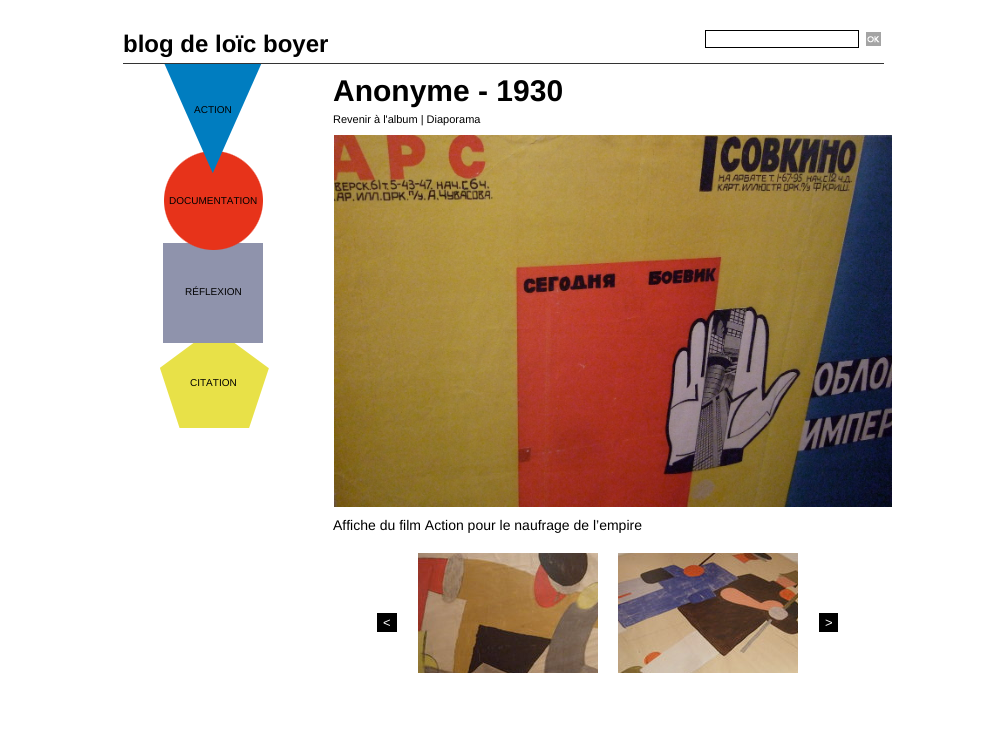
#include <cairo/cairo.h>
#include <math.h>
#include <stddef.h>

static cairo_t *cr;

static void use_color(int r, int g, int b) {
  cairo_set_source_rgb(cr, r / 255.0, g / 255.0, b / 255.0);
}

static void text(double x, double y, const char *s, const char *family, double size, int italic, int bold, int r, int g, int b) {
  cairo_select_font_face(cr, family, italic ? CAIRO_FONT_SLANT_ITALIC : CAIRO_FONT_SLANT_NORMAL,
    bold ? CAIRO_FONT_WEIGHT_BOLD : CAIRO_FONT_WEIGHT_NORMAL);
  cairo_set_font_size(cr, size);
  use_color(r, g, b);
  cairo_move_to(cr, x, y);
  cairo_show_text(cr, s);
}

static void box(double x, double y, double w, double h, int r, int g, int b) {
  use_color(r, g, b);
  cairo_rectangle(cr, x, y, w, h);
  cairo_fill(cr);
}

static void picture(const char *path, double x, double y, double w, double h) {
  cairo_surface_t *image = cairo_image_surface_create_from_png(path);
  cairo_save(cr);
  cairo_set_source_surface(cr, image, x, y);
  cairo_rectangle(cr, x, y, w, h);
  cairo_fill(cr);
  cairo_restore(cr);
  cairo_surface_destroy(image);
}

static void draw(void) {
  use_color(255, 255, 255);
  cairo_paint(cr);
  cairo_rectangle(cr, 705.5, 30.5, 153, 17);
  use_color(0, 0, 0);
  cairo_set_line_width(cr, 1);
  cairo_stroke(cr);
  picture("img_01.png", 866, 32, 15, 14);
  box(123, 63, 761, 1, 51, 51, 51);
  picture("img_02.png", 160, 64, 109, 364);
  picture("img_03.png", 334, 135, 558, 372);
  box(377, 613, 20, 19, 0, 0, 0);
  picture("img_04.png", 418, 553, 180, 120);
  picture("img_05.png", 618, 553, 180, 120);
  box(819, 613, 19, 19, 0, 0, 0);
  text(123, 52, "blog de loïc boyer", "Liberation Sans", 24, 0, 1, 0, 0, 0);
  text(194, 113, "ACTION", "Liberation Sans", 10, 0, 0, 0, 0, 0);
  text(169, 204, "DOCUMENTATION", "Liberation Sans", 10, 0, 0, 0, 0, 0);
  text(185, 295, "RÉFLEXION", "Liberation Sans", 10, 0, 0, 0, 0, 0);
  text(190, 386, "CITATION", "Liberation Sans", 10, 0, 0, 0, 0, 0);
  text(333, 101, "Anonyme - 1930", "Liberation Sans", 30, 0, 1, 0, 0, 0);
  text(333, 123, "Revenir à l'album | Diaporama", "Liberation Sans", 11, 0, 0, 0, 0, 0);
  text(333, 530, "Affiche du film Action pour le naufrage de l’empire", "Liberation Sans", 14, 0, 0, 0, 0, 0);
  text(383, 627, "<", "Liberation Sans", 13, 0, 0, 255, 255, 255);
  text(825, 627, ">", "Liberation Sans", 13, 0, 0, 255, 255, 255);
}

int main(void) {
  cairo_surface_t *surface = cairo_image_surface_create(CAIRO_FORMAT_RGB24, 1007, 730);
  cr = cairo_create(surface);
  cairo_font_options_t *options = cairo_font_options_create();
  cairo_font_options_set_hint_metrics(options, CAIRO_HINT_METRICS_OFF);
  cairo_font_options_set_hint_style(options, CAIRO_HINT_STYLE_NONE);
  cairo_set_font_options(cr, options);
  cairo_set_miter_limit(cr, 4);
  draw();
  cairo_surface_write_to_png(surface, "out.png");
  cairo_font_options_destroy(options);
  cairo_destroy(cr);
  cairo_surface_destroy(surface);
  return 0;
}
